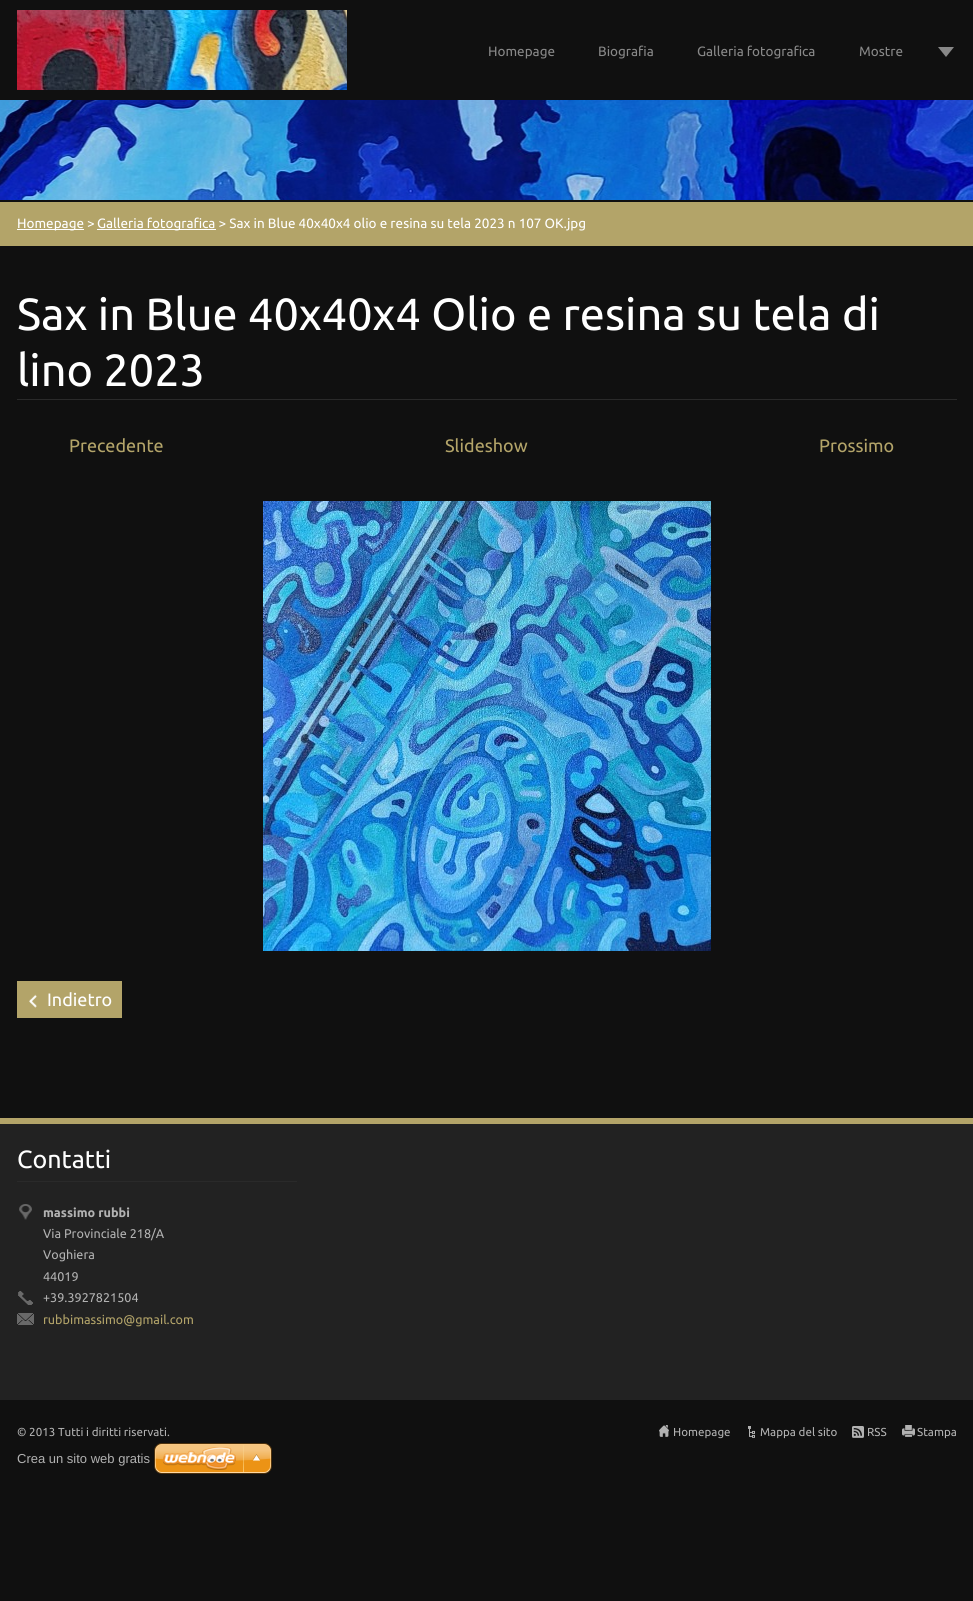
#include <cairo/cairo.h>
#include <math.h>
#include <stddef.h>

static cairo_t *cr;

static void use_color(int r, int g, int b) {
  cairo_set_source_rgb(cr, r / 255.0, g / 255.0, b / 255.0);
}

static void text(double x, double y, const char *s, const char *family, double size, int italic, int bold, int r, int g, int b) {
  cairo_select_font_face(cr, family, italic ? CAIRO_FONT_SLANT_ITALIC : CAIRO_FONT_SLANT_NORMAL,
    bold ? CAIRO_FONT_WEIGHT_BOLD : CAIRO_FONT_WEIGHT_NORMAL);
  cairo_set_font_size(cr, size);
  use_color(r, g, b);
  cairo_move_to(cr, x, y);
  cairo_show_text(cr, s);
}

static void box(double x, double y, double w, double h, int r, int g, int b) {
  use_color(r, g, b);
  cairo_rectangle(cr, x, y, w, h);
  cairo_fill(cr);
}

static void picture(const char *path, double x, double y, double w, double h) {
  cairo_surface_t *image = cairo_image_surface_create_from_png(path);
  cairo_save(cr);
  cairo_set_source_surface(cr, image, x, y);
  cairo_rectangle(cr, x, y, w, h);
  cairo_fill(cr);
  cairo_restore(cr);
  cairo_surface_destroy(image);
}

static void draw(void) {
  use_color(16, 16, 16);
  cairo_paint(cr);
  picture("img_01.png", 17, 10, 330, 80);
  use_color(136, 136, 136);
  cairo_new_path(cr);
  cairo_move_to(cr, 938, 47);
  cairo_line_to(cr, 954, 47);
  cairo_line_to(cr, 946, 57);
  cairo_close_path(cr);
  cairo_fill(cr);
  picture("img_02.png", 0, 100, 973, 100);
  box(0, 202, 973, 44, 179, 164, 105);
  box(17, 229, 67, 1, 255, 255, 255);
  box(97, 229, 119, 1, 255, 255, 255);
  box(17, 399, 940, 1, 42, 42, 42);
  picture("img_03.png", 263, 501, 448, 450);
  box(17, 981, 105, 37, 179, 164, 105);
  picture("img_04.png", 29, 994, 8, 14);
  box(0, 1124, 973, 276, 34, 34, 34);
  box(0, 1118, 973, 6, 179, 164, 105);
  box(17, 1181, 280, 1, 42, 42, 42);
  picture("img_05.png", 19, 1204, 13, 16);
  picture("img_06.png", 18, 1291, 15, 14);
  picture("img_07.png", 17, 1313, 17, 12);
  picture("img_08.png", 659, 1425, 10, 12);
  picture("img_09.png", 748, 1426, 7, 12);
  picture("img_10.png", 852, 1426, 12, 12);
  picture("img_11.png", 902, 1425, 13, 12);
  picture("img_12.png", 154, 1443, 118, 31);
  text(488, 56, "Homepage", "Ubuntu", 13.5, 0, 0, 136, 136, 136);
  text(598, 56, "Biografia", "Ubuntu", 13.5, 0, 0, 136, 136, 136);
  text(697, 56, "Galleria fotografica", "Ubuntu", 13.5, 0, 0, 136, 136, 136);
  text(859, 56, "Mostre", "Ubuntu", 13.5, 0, 0, 136, 136, 136);
  text(17, 228, "Homepage >", "Ubuntu", 13.5, 0, 0, 255, 255, 255);
  text(97, 228, "Galleria fotografica > Sax in Blue 40x40x4 olio e resina su tela 2023 n 107 OK.jpg", "Ubuntu", 13.5, 0, 0, 255, 255, 255);
  text(17, 330, "Sax in Blue 40x40x4 Olio e resina su tela di", "Ubuntu", 45, 0, 0, 255, 255, 255);
  text(17, 386, "lino 2023", "Ubuntu", 45, 0, 0, 255, 255, 255);
  text(69, 452, "Precedente", "Ubuntu", 18, 0, 0, 179, 164, 105);
  text(445, 452, "Slideshow", "Ubuntu", 18, 0, 0, 179, 164, 105);
  text(819, 452, "Prossimo", "Ubuntu", 18, 0, 0, 179, 164, 105);
  text(47, 1006, "Indietro", "Ubuntu", 18, 0, 0, 255, 255, 255);
  text(17, 1168, "Contatti", "Ubuntu", 25, 0, 0, 255, 255, 255);
  text(43, 1217, "massimo rubbi", "Ubuntu", 12.6, 0, 1, 178, 178, 178);
  text(43, 1238, "Via Provinciale 218/A", "Ubuntu", 12.6, 0, 0, 178, 178, 178);
  text(43, 1259, "Voghiera", "Ubuntu", 12.6, 0, 0, 178, 178, 178);
  text(43, 1281, "44019", "Ubuntu", 12.6, 0, 0, 178, 178, 178);
  text(43, 1302, "+39.3927821504", "Ubuntu", 12.6, 0, 0, 178, 178, 178);
  text(43, 1324, "rubbimassimo@gmail.com", "Ubuntu", 12.6, 0, 0, 179, 164, 105);
  text(17, 1436, "© 2013 Tutti i diritti riservati.", "Ubuntu", 11.6, 0, 0, 178, 178, 178);
  text(673, 1436, "Homepage", "Ubuntu", 11.6, 0, 0, 178, 178, 178);
  text(760, 1436, "Mappa del sito", "Ubuntu", 11.6, 0, 0, 178, 178, 178);
  text(867, 1436, "RSS", "Ubuntu", 11.6, 0, 0, 178, 178, 178);
  text(917, 1436, "Stampa", "Ubuntu", 11.6, 0, 0, 178, 178, 178);
  text(17, 1463, "Crea un sito web gratis", "Liberation Sans", 13, 0, 0, 178, 178, 178);
}

int main(void) {
  cairo_surface_t *surface = cairo_image_surface_create(CAIRO_FORMAT_RGB24, 973, 1601);
  cr = cairo_create(surface);
  cairo_font_options_t *options = cairo_font_options_create();
  cairo_font_options_set_hint_metrics(options, CAIRO_HINT_METRICS_OFF);
  cairo_font_options_set_hint_style(options, CAIRO_HINT_STYLE_NONE);
  cairo_set_font_options(cr, options);
  cairo_set_miter_limit(cr, 4);
  draw();
  cairo_surface_write_to_png(surface, "out.png");
  cairo_font_options_destroy(options);
  cairo_destroy(cr);
  cairo_surface_destroy(surface);
  return 0;
}
